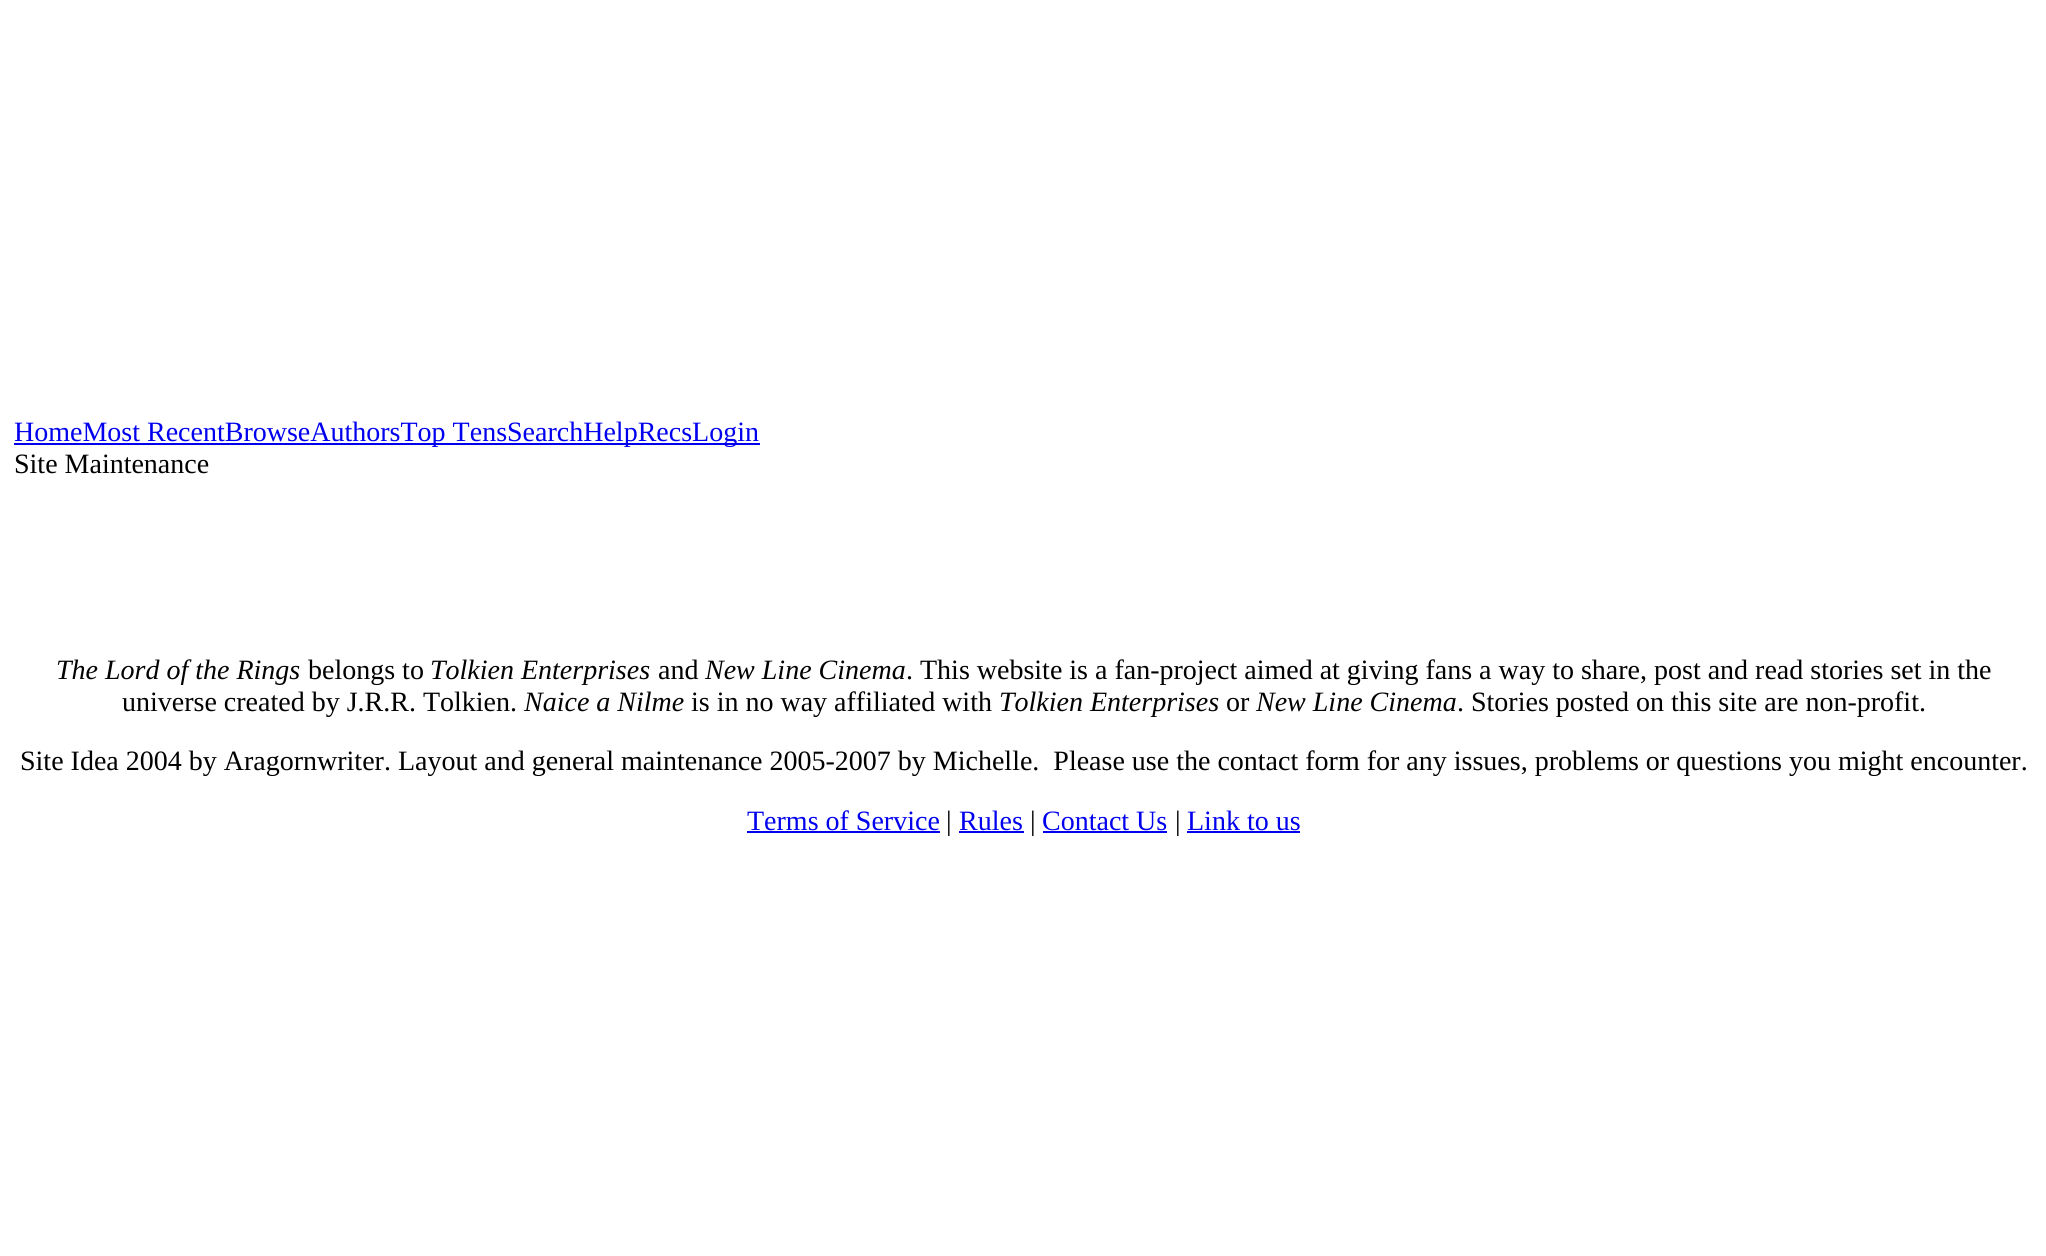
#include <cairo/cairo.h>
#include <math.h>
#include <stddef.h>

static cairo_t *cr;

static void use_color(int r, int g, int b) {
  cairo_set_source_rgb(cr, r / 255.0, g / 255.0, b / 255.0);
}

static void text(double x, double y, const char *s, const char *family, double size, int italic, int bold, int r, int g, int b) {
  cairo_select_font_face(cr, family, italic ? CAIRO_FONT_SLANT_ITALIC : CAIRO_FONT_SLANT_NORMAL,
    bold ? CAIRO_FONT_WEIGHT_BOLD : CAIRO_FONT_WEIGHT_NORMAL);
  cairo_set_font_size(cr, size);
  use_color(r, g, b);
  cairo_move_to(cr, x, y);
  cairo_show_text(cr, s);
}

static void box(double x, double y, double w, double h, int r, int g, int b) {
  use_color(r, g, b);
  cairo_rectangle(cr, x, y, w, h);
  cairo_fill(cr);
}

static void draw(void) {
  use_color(255, 255, 255);
  cairo_paint(cr);
  box(14, 443, 746, 2, 0, 0, 238);
  box(747, 831, 193, 2, 0, 0, 238);
  box(959, 831, 65, 2, 0, 0, 238);
  box(1043, 831, 124, 2, 0, 0, 238);
  box(1187, 831, 113, 2, 0, 0, 238);
  text(14, 441, "HomeMost RecentBrowseAuthorsTop TensSearchHelpRecsLogin", "Liberation Serif", 28, 0, 0, 0, 0, 238);
  text(14, 473, "Site Maintenance", "Liberation Serif", 28, 0, 0, 0, 0, 0);
  text(56, 679, "The Lord of the Rings", "Liberation Serif", 28, 1, 0, 0, 0, 0);
  text(308, 679, "belongs to", "Liberation Serif", 28, 0, 0, 0, 0, 0);
  text(430, 679, "Tolkien Enterprises", "Liberation Serif", 28, 1, 0, 0, 0, 0);
  text(658, 679, "and", "Liberation Serif", 28, 0, 0, 0, 0, 0);
  text(705, 679, "New Line Cinema", "Liberation Serif", 28, 1, 0, 0, 0, 0);
  text(906, 679, ". This website is a fan-project aimed at giving fans a way to share, post and read stories set in the", "Liberation Serif", 28, 0, 0, 0, 0, 0);
  text(122, 711, "universe created by J.R.R. Tolkien.", "Liberation Serif", 28, 0, 0, 0, 0, 0);
  text(524, 711, "Naice a Nilme", "Liberation Serif", 28, 1, 0, 0, 0, 0);
  text(691, 711, "is in no way affiliated with", "Liberation Serif", 28, 0, 0, 0, 0, 0);
  text(999, 711, "Tolkien Enterprises", "Liberation Serif", 28, 1, 0, 0, 0, 0);
  text(1226, 711, "or", "Liberation Serif", 28, 0, 0, 0, 0, 0);
  text(1256, 711, "New Line Cinema", "Liberation Serif", 28, 1, 0, 0, 0, 0);
  text(1457, 711, ". Stories posted on this site are non-profit.", "Liberation Serif", 28, 0, 0, 0, 0, 0);
  text(20, 770, "Site Idea 2004 by Aragornwriter. Layout and general maintenance 2005-2007 by Michelle.  Please use the contact form for any issues, problems or questions you might encounter.", "Liberation Serif", 28, 0, 0, 0, 0, 0);
  text(747, 830, "Terms of Service", "Liberation Serif", 28, 0, 0, 0, 0, 238);
  text(946, 830, "|", "Liberation Serif", 28, 0, 0, 0, 0, 0);
  text(959, 830, "Rules", "Liberation Serif", 28, 0, 0, 0, 0, 238);
  text(1030, 830, "|", "Liberation Serif", 28, 0, 0, 0, 0, 0);
  text(1042, 830, "Contact Us", "Liberation Serif", 28, 0, 0, 0, 0, 238);
  text(1175, 830, "|", "Liberation Serif", 28, 0, 0, 0, 0, 0);
  text(1187, 830, "Link to us", "Liberation Serif", 28, 0, 0, 0, 0, 238);
}

int main(void) {
  cairo_surface_t *surface = cairo_image_surface_create(CAIRO_FORMAT_RGB24, 2046, 1256);
  cr = cairo_create(surface);
  cairo_font_options_t *options = cairo_font_options_create();
  cairo_font_options_set_hint_metrics(options, CAIRO_HINT_METRICS_OFF);
  cairo_font_options_set_hint_style(options, CAIRO_HINT_STYLE_NONE);
  cairo_set_font_options(cr, options);
  cairo_set_miter_limit(cr, 4);
  draw();
  cairo_surface_write_to_png(surface, "out.png");
  cairo_font_options_destroy(options);
  cairo_destroy(cr);
  cairo_surface_destroy(surface);
  return 0;
}
